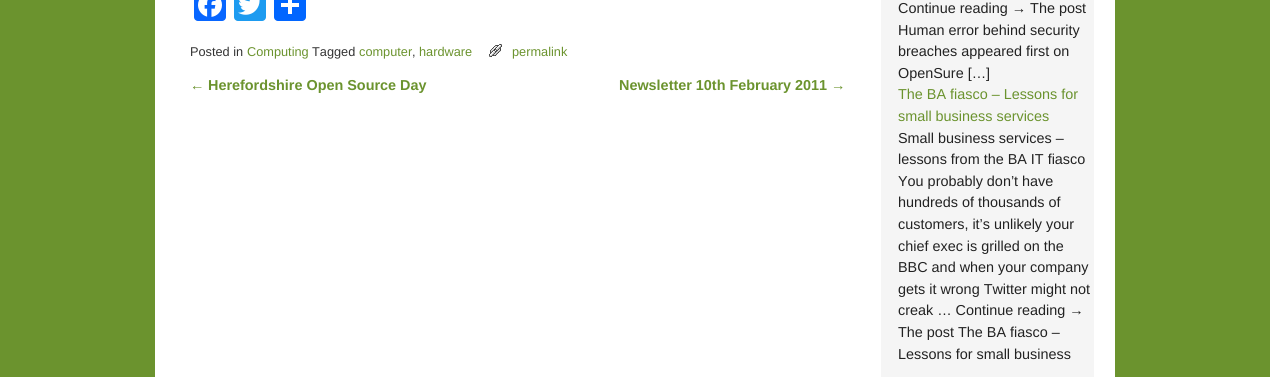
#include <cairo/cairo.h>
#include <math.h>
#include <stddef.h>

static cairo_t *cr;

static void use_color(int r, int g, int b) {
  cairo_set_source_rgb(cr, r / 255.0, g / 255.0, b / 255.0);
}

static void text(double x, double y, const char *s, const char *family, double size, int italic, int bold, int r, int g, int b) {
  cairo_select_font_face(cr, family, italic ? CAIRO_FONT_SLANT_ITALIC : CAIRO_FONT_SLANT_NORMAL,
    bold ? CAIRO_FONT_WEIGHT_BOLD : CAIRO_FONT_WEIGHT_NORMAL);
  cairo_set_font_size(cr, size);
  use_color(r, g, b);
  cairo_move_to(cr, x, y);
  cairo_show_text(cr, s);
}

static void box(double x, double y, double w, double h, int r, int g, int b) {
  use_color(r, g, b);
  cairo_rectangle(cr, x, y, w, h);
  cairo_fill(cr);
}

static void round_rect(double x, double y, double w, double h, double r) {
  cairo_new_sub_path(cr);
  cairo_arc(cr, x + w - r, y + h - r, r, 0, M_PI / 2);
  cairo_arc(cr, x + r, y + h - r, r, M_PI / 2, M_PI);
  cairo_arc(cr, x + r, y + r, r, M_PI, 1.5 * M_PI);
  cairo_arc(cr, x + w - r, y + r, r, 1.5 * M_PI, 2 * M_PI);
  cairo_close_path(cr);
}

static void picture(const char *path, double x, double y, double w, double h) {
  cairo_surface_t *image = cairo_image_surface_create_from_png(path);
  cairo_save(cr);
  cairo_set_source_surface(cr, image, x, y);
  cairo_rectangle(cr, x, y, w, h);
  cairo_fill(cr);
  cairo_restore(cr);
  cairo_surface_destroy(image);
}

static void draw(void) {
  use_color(107, 147, 46);
  cairo_paint(cr);
  box(155, 0, 960, 377, 255, 255, 255);
  use_color(8, 102, 255);
  round_rect(194, -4, 32, 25, 4);
  cairo_fill(cr);
  picture("img_01.png", 198, 0, 24, 17);
  use_color(29, 155, 240);
  round_rect(234, -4, 32, 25, 4);
  cairo_fill(cr);
  picture("img_02.png", 238, 0, 22, 15);
  use_color(1, 102, 255);
  round_rect(274, -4, 32, 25, 4);
  cairo_fill(cr);
  box(288, 0, 4, 14, 255, 255, 255);
  box(281, 3, 18, 4, 255, 255, 255);
  picture("img_03.png", 489, 44, 13, 13);
  box(881, 0, 213, 377, 245, 245, 245);
  text(190, 56, "Posted in", "Liberation Sans", 12.75, 0, 0, 51, 51, 51);
  text(247, 56, "Computing", "Liberation Sans", 12.75, 0, 0, 107, 147, 46);
  text(312, 56, "Tagged", "Liberation Sans", 12.75, 0, 0, 51, 51, 51);
  text(359, 56, "computer", "Liberation Sans", 12.75, 0, 0, 107, 147, 46);
  text(412, 56, ",", "Liberation Sans", 12.75, 0, 0, 51, 51, 51);
  text(419, 56, "hardware", "Liberation Sans", 12.75, 0, 0, 107, 147, 46);
  text(512, 56, "permalink", "Liberation Sans", 12.75, 0, 0, 107, 147, 46);
  text(190, 90, "←", "Liberation Sans", 14.4, 0, 0, 107, 147, 46);
  text(208, 90, "Herefordshire Open Source Day", "Liberation Sans", 14.4, 0, 1, 107, 147, 46);
  text(619, 90, "Newsletter 10th February 2011", "Liberation Sans", 14.4, 0, 1, 107, 147, 46);
  text(831, 90, "→", "Liberation Sans", 14.4, 0, 0, 107, 147, 46);
  text(898, 13, "Continue reading → The post", "Liberation Sans", 14.4, 0, 0, 34, 34, 34);
  text(898, 35, "Human error behind security", "Liberation Sans", 14.4, 0, 0, 34, 34, 34);
  text(898, 56, "breaches appeared first on", "Liberation Sans", 14.4, 0, 0, 34, 34, 34);
  text(898, 78, "OpenSure […]", "Liberation Sans", 14.4, 0, 0, 34, 34, 34);
  text(898, 99, "The BA fiasco – Lessons for", "Liberation Sans", 14.4, 0, 0, 107, 147, 46);
  text(898, 121, "small business services", "Liberation Sans", 14.4, 0, 0, 107, 147, 46);
  text(898, 143, "Small business services –", "Liberation Sans", 14.4, 0, 0, 34, 34, 34);
  text(898, 164, "lessons from the BA IT fiasco", "Liberation Sans", 14.4, 0, 0, 34, 34, 34);
  text(898, 186, "You probably don’t have", "Liberation Sans", 14.4, 0, 0, 34, 34, 34);
  text(898, 207, "hundreds of thousands of", "Liberation Sans", 14.4, 0, 0, 34, 34, 34);
  text(898, 229, "customers, it’s unlikely your", "Liberation Sans", 14.4, 0, 0, 34, 34, 34);
  text(898, 251, "chief exec is grilled on the", "Liberation Sans", 14.4, 0, 0, 34, 34, 34);
  text(898, 272, "BBC and when your company", "Liberation Sans", 14.4, 0, 0, 34, 34, 34);
  text(898, 294, "gets it wrong Twitter might not", "Liberation Sans", 14.4, 0, 0, 34, 34, 34);
  text(898, 315, "creak … Continue reading →", "Liberation Sans", 14.4, 0, 0, 34, 34, 34);
  text(898, 337, "The post The BA fiasco –", "Liberation Sans", 14.4, 0, 0, 34, 34, 34);
  text(898, 359, "Lessons for small business", "Liberation Sans", 14.4, 0, 0, 34, 34, 34);
}

int main(void) {
  cairo_surface_t *surface = cairo_image_surface_create(CAIRO_FORMAT_RGB24, 1270, 377);
  cr = cairo_create(surface);
  cairo_font_options_t *options = cairo_font_options_create();
  cairo_font_options_set_hint_metrics(options, CAIRO_HINT_METRICS_OFF);
  cairo_font_options_set_hint_style(options, CAIRO_HINT_STYLE_NONE);
  cairo_set_font_options(cr, options);
  cairo_set_miter_limit(cr, 4);
  draw();
  cairo_surface_write_to_png(surface, "out.png");
  cairo_font_options_destroy(options);
  cairo_destroy(cr);
  cairo_surface_destroy(surface);
  return 0;
}
